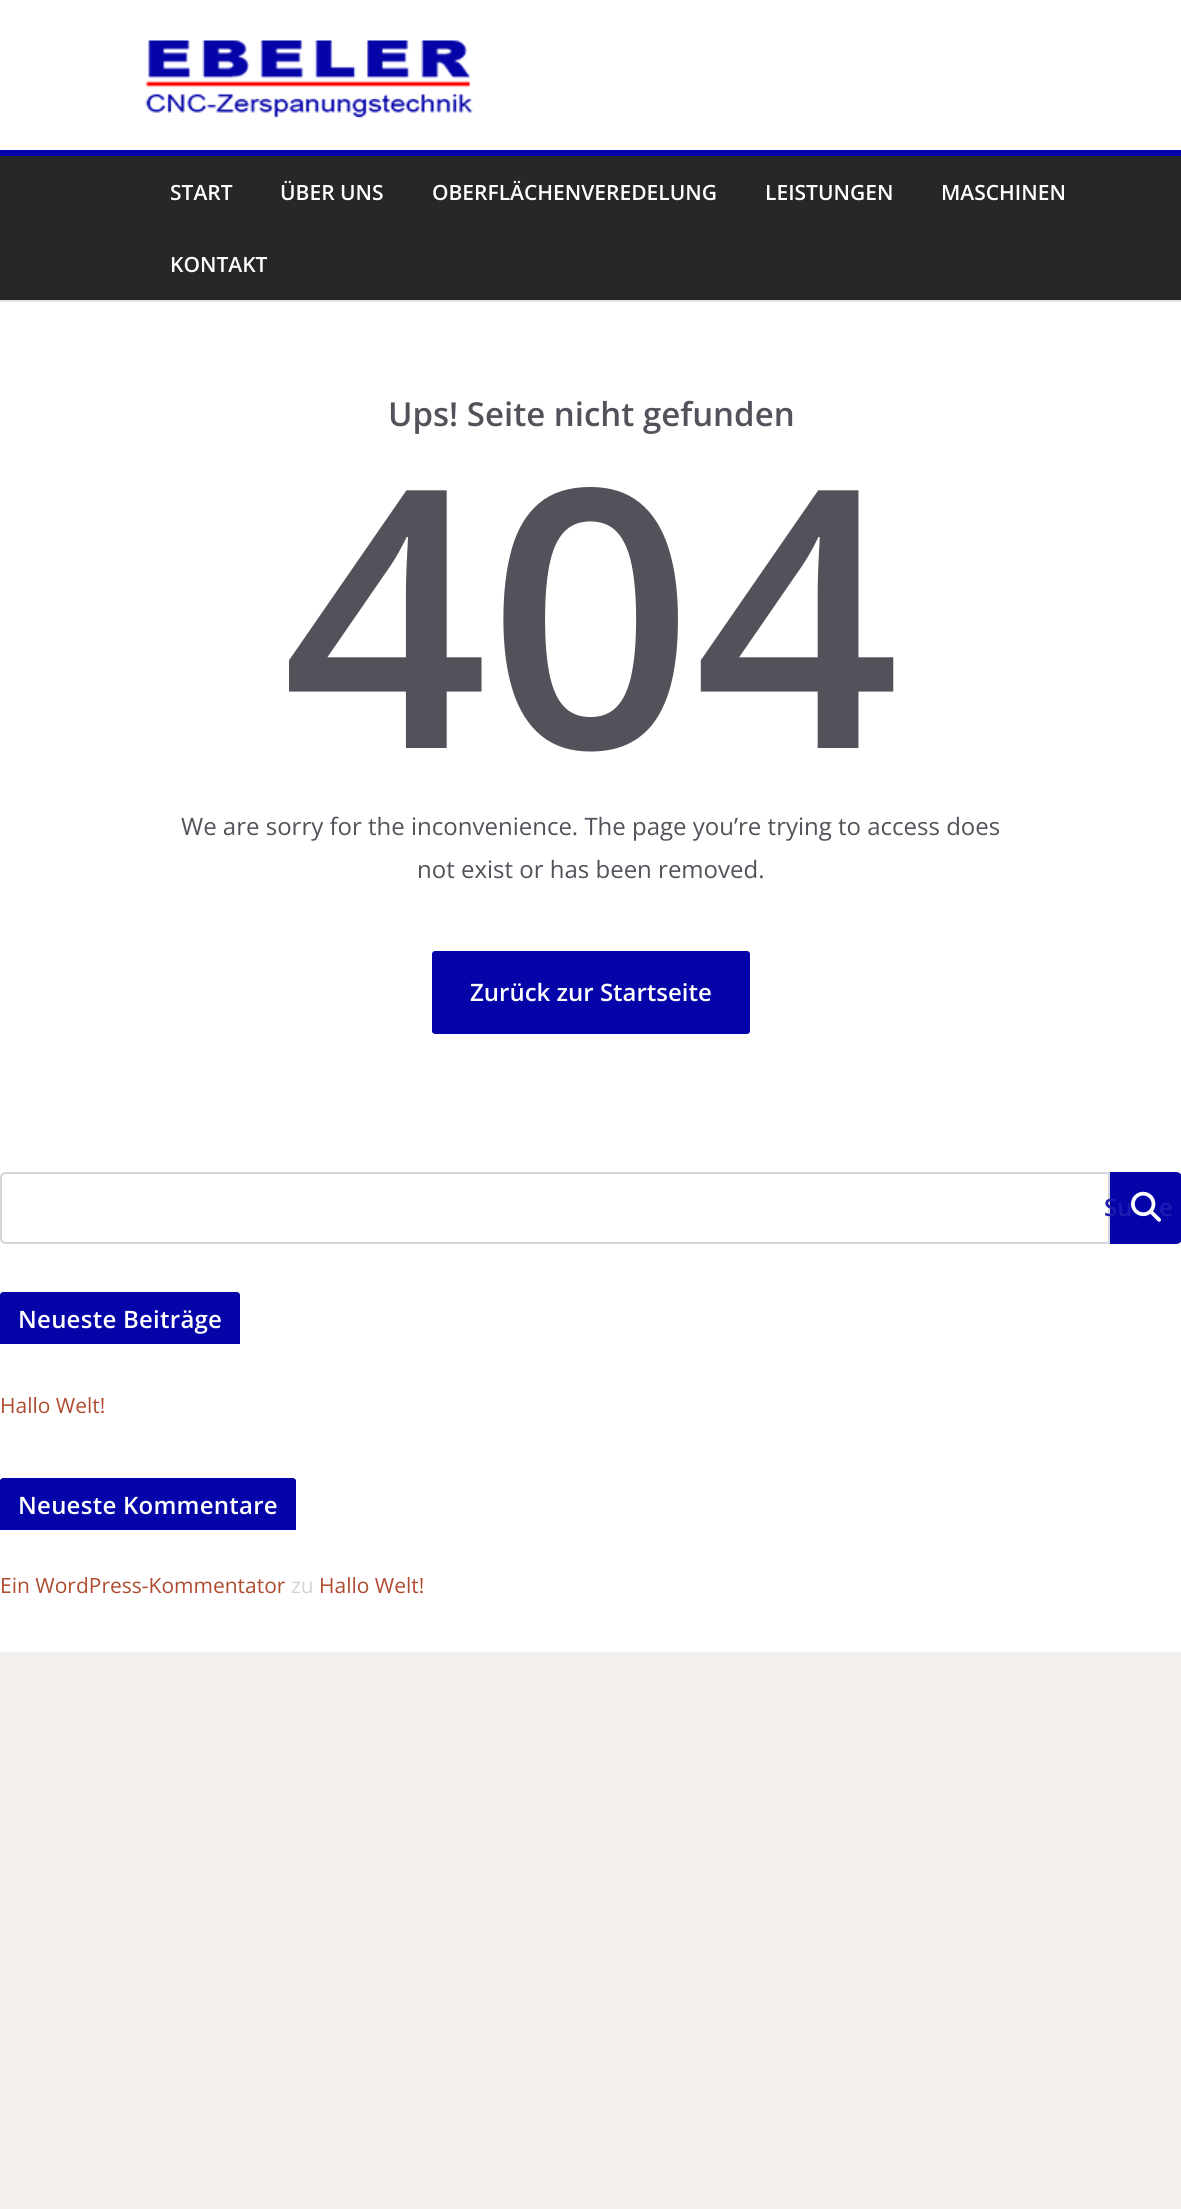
#include <cairo/cairo.h>
#include <math.h>
#include <stddef.h>

static cairo_t *cr;

static void use_color(int r, int g, int b) {
  cairo_set_source_rgb(cr, r / 255.0, g / 255.0, b / 255.0);
}

static void text(double x, double y, const char *s, const char *family, double size, int italic, int bold, int r, int g, int b) {
  cairo_select_font_face(cr, family, italic ? CAIRO_FONT_SLANT_ITALIC : CAIRO_FONT_SLANT_NORMAL,
    bold ? CAIRO_FONT_WEIGHT_BOLD : CAIRO_FONT_WEIGHT_NORMAL);
  cairo_set_font_size(cr, size);
  use_color(r, g, b);
  cairo_move_to(cr, x, y);
  cairo_show_text(cr, s);
}

static void spaced_text(double x, double y, const char *s, double letter, double word) {
  cairo_move_to(cr, x, y);
  while (*s) {
    char ch[5] = {0};
    int n = 0;
    do ch[n++] = *s++; while ((*s & 0xC0) == 0x80);
    cairo_show_text(cr, ch);
    cairo_rel_move_to(cr, letter + word * (*ch == ' '), 0);
  }
}

static void box(double x, double y, double w, double h, int r, int g, int b) {
  use_color(r, g, b);
  cairo_rectangle(cr, x, y, w, h);
  cairo_fill(cr);
}

static void round_rect(double x, double y, double w, double h, double r) {
  cairo_new_sub_path(cr);
  cairo_arc(cr, x + w - r, y + h - r, r, 0, M_PI / 2);
  cairo_arc(cr, x + r, y + h - r, r, M_PI / 2, M_PI);
  cairo_arc(cr, x + r, y + r, r, M_PI, 1.5 * M_PI);
  cairo_arc(cr, x + w - r, y + r, r, 1.5 * M_PI, 2 * M_PI);
  cairo_close_path(cr);
}

static void picture(const char *path, double x, double y, double w, double h) {
  cairo_surface_t *image = cairo_image_surface_create_from_png(path);
  cairo_save(cr);
  cairo_set_source_surface(cr, image, x, y);
  cairo_rectangle(cr, x, y, w, h);
  cairo_fill(cr);
  cairo_restore(cr);
  cairo_surface_destroy(image);
}

static void draw(void) {
  use_color(244, 240, 238);
  cairo_paint(cr);
  box(0, 300, 1181, 2, 228, 228, 231);
  box(0, 0, 1181, 150, 255, 255, 255);
  picture("img_01.png", 145, 40, 328, 78);
  box(0, 156, 1181, 144, 39, 39, 42);
  box(0, 150, 1181, 6, 4, 4, 169);
  box(0, 302, 1181, 1350, 255, 255, 255);
  use_color(4, 4, 169);
  round_rect(433, 952, 316, 81, 2);
  cairo_fill_preserve(cr);
  cairo_stroke(cr);
  cairo_new_path(cr);
  cairo_move_to(cr, 6, 1173);
  cairo_line_to(cr, 1109, 1173);
  cairo_line_to(cr, 1109, 1243);
  cairo_line_to(cr, 6, 1243);
  cairo_curve_to(cr, 3, 1243, 1, 1241, 1, 1238);
  cairo_line_to(cr, 1, 1178);
  cairo_curve_to(cr, 1, 1175, 3, 1173, 6, 1173);
  cairo_close_path(cr);
  use_color(212, 212, 216);
  cairo_stroke(cr);
  use_color(4, 4, 169);
  cairo_new_path(cr);
  cairo_move_to(cr, 1110, 1172);
  cairo_line_to(cr, 1176, 1172);
  cairo_curve_to(cr, 1179.5, 1172, 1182, 1174.5, 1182, 1178);
  cairo_line_to(cr, 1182, 1238);
  cairo_curve_to(cr, 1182, 1241.5, 1179.5, 1244, 1176, 1244);
  cairo_line_to(cr, 1110, 1244);
  cairo_close_path(cr);
  cairo_fill(cr);
  cairo_new_path(cr);
  cairo_move_to(cr, 3, 1292);
  cairo_line_to(cr, 237, 1292);
  cairo_curve_to(cr, 238.5, 1292, 240, 1293.5, 240, 1295);
  cairo_line_to(cr, 240, 1344);
  cairo_line_to(cr, 0, 1344);
  cairo_line_to(cr, 0, 1295);
  cairo_curve_to(cr, 0, 1293.5, 1.5, 1292, 3, 1292);
  cairo_close_path(cr);
  cairo_fill(cr);
  cairo_new_path(cr);
  cairo_move_to(cr, 3, 1478);
  cairo_line_to(cr, 293, 1478);
  cairo_curve_to(cr, 294.5, 1478, 296, 1479.5, 296, 1481);
  cairo_line_to(cr, 296, 1530);
  cairo_line_to(cr, 0, 1530);
  cairo_line_to(cr, 0, 1481);
  cairo_curve_to(cr, 0, 1479.5, 1.5, 1478, 3, 1478);
  cairo_close_path(cr);
  cairo_fill(cr);
  text(170, 200, "START", "Open Sans SemiBold", 21, 0, 0, 255, 255, 255);
  text(280, 200, "ÜBER UNS", "Open Sans SemiBold", 21, 0, 0, 255, 255, 255);
  text(432, 200, "OBERFLÄCHENVEREDELUNG", "Open Sans SemiBold", 21, 0, 0, 255, 255, 255);
  text(765, 200, "LEISTUNGEN", "Open Sans SemiBold", 21, 0, 0, 255, 255, 255);
  text(941, 200, "MASCHINEN", "Open Sans SemiBold", 21, 0, 0, 255, 255, 255);
  text(170, 272, "KONTAKT", "Open Sans SemiBold", 21, 0, 0, 255, 255, 255);
  text(388, 426, "Ups! Seite nicht gefunden", "Open Sans SemiBold", 33, 0, 0, 82, 82, 91);
  text(282, 748, "404", "Open Sans SemiBold", 360, 0, 0, 82, 82, 91);
  text(181, 835, "We are sorry for the inconvenience. The page you’re trying to access does", "Open Sans", 24, 0, 0, 82, 82, 91);
  text(417, 878, "not exist or has been removed.", "Open Sans", 24, 0, 0, 82, 82, 91);
  text(470, 1001, "Zurück zur Startseite", "Open Sans SemiBold", 24, 0, 0, 255, 255, 255);
  text(1104, 1216, "Su", "Open Sans SemiBold", 24, 0, 0, 27, 27, 176);
  text(1159, 1216, "e", "Open Sans SemiBold", 24, 0, 0, 27, 27, 176);
  picture("img_02.png", 1131, 1191, 30, 31);
  use_color(255, 255, 255);
  spaced_text(18, 1328, "Neueste Beiträge", 0.25, 0);
  text(0, 1413, "Hallo Welt!", "Open Sans", 21, 0, 0, 175, 75, 47);
  cairo_select_font_face(cr, "Open Sans SemiBold", CAIRO_FONT_SLANT_NORMAL, CAIRO_FONT_WEIGHT_NORMAL);
  cairo_set_font_size(cr, 24);
  use_color(255, 255, 255);
  spaced_text(18, 1514, "Neueste Kommentare", 0.25, 0);
  text(0, 1593, "Ein WordPress-Kommentator", "Open Sans", 21, 0, 0, 175, 75, 47);
  text(291, 1593, "zu", "Open Sans", 21, 0, 0, 212, 212, 212);
  text(319, 1593, "Hallo Welt!", "Open Sans", 21, 0, 0, 175, 75, 47);
}

int main(void) {
  cairo_surface_t *surface = cairo_image_surface_create(CAIRO_FORMAT_RGB24, 1181, 2209);
  cr = cairo_create(surface);
  cairo_font_options_t *options = cairo_font_options_create();
  cairo_font_options_set_hint_metrics(options, CAIRO_HINT_METRICS_OFF);
  cairo_font_options_set_hint_style(options, CAIRO_HINT_STYLE_NONE);
  cairo_set_font_options(cr, options);
  cairo_set_miter_limit(cr, 4);
  draw();
  cairo_surface_write_to_png(surface, "out.png");
  cairo_font_options_destroy(options);
  cairo_destroy(cr);
  cairo_surface_destroy(surface);
  return 0;
}
